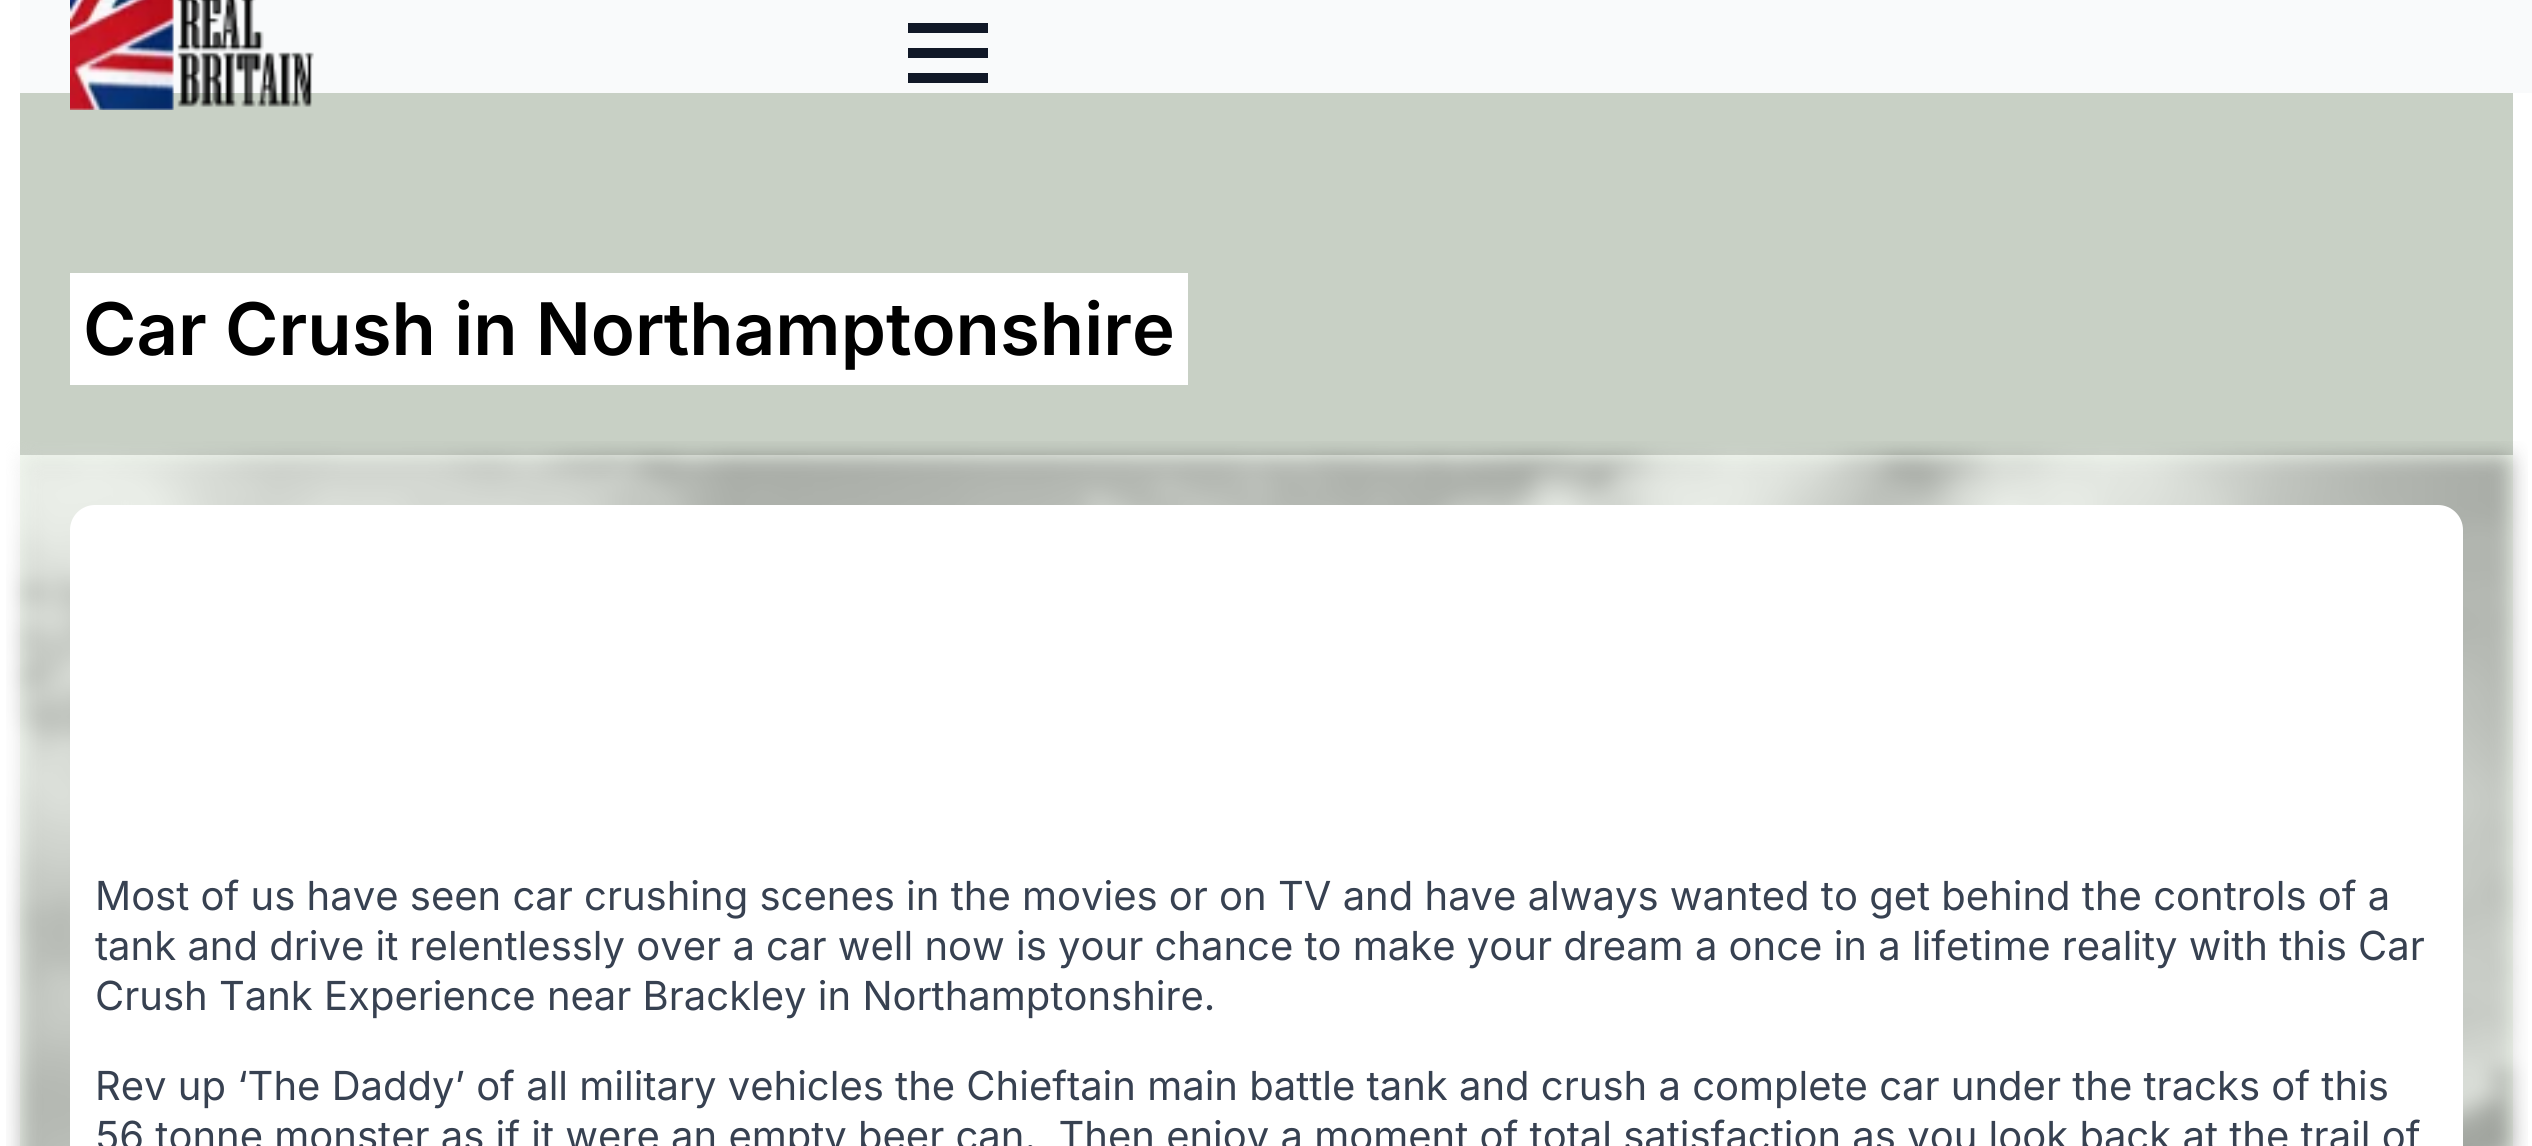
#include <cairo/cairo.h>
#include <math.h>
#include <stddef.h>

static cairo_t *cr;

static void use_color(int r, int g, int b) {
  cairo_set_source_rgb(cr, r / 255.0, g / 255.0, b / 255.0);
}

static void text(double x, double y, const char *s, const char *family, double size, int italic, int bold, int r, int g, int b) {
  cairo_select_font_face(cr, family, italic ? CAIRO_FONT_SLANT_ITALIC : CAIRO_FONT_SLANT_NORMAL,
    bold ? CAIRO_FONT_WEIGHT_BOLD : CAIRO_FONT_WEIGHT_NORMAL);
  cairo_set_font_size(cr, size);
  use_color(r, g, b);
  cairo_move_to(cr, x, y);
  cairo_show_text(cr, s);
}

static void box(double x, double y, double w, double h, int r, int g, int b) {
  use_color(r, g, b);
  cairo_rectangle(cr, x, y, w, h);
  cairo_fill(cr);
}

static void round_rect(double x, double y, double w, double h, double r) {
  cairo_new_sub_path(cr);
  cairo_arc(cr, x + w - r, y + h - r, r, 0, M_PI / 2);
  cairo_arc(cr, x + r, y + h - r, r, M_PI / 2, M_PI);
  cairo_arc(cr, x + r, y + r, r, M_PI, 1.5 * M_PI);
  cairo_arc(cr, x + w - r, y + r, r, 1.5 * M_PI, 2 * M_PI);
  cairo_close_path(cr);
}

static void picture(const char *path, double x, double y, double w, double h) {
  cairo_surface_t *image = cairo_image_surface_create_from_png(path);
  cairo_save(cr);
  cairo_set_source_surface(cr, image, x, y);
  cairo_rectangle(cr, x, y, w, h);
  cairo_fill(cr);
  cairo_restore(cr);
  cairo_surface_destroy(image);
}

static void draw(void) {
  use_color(255, 255, 255);
  cairo_paint(cr);
  box(20, 0, 2512, 93, 249, 250, 251);
  box(20, 93, 2493, 362, 200, 208, 197);
  picture("img_01.png", 70, 0, 244, 110);
  box(908, 48, 80, 10, 17, 24, 39);
  box(908, 23, 80, 10, 17, 24, 39);
  box(908, 73, 80, 10, 17, 24, 39);
  box(70, 273, 1118, 112, 255, 255, 255);
  box(20, 455, 2493, 691, 242, 249, 239);
  picture("img_02.png", 6, 441, 2522, 705);
  use_color(255, 255, 255);
  round_rect(70, 505, 2393, 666, 25);
  cairo_fill(cr);
  text(83, 355, "Car Crush in Northamptonshire", "Inter SemiBold", 72.5, 0, 0, 0, 0, 0);
  text(95, 910, "Most of us have seen car crushing scenes in the movies or on TV and have always wanted to get behind the controls of a", "Inter", 40, 0, 0, 55, 65, 81);
  text(95, 960, "tank and drive it relentlessly over a car well now is your chance to make your dream a once in a lifetime reality with this Car", "Inter", 40, 0, 0, 55, 65, 81);
  text(95, 1010, "Crush Tank Experience near Brackley in Northamptonshire.", "Inter", 40, 0, 0, 55, 65, 81);
  text(95, 1100, "Rev up ‘The Daddy’ of all military vehicles the Chieftain main battle tank and crush a complete car under the tracks of this", "Inter", 40, 0, 0, 55, 65, 81);
  text(95, 1150, "56 tonne monster as if it were an empty beer can.  Then enjoy a moment of total satisfaction as you look back at the trail of", "Inter", 40, 0, 0, 55, 65, 81);
}

int main(void) {
  cairo_surface_t *surface = cairo_image_surface_create(CAIRO_FORMAT_RGB24, 2532, 1146);
  cr = cairo_create(surface);
  cairo_font_options_t *options = cairo_font_options_create();
  cairo_font_options_set_hint_metrics(options, CAIRO_HINT_METRICS_OFF);
  cairo_font_options_set_hint_style(options, CAIRO_HINT_STYLE_NONE);
  cairo_set_font_options(cr, options);
  cairo_set_miter_limit(cr, 4);
  draw();
  cairo_surface_write_to_png(surface, "out.png");
  cairo_font_options_destroy(options);
  cairo_destroy(cr);
  cairo_surface_destroy(surface);
  return 0;
}
